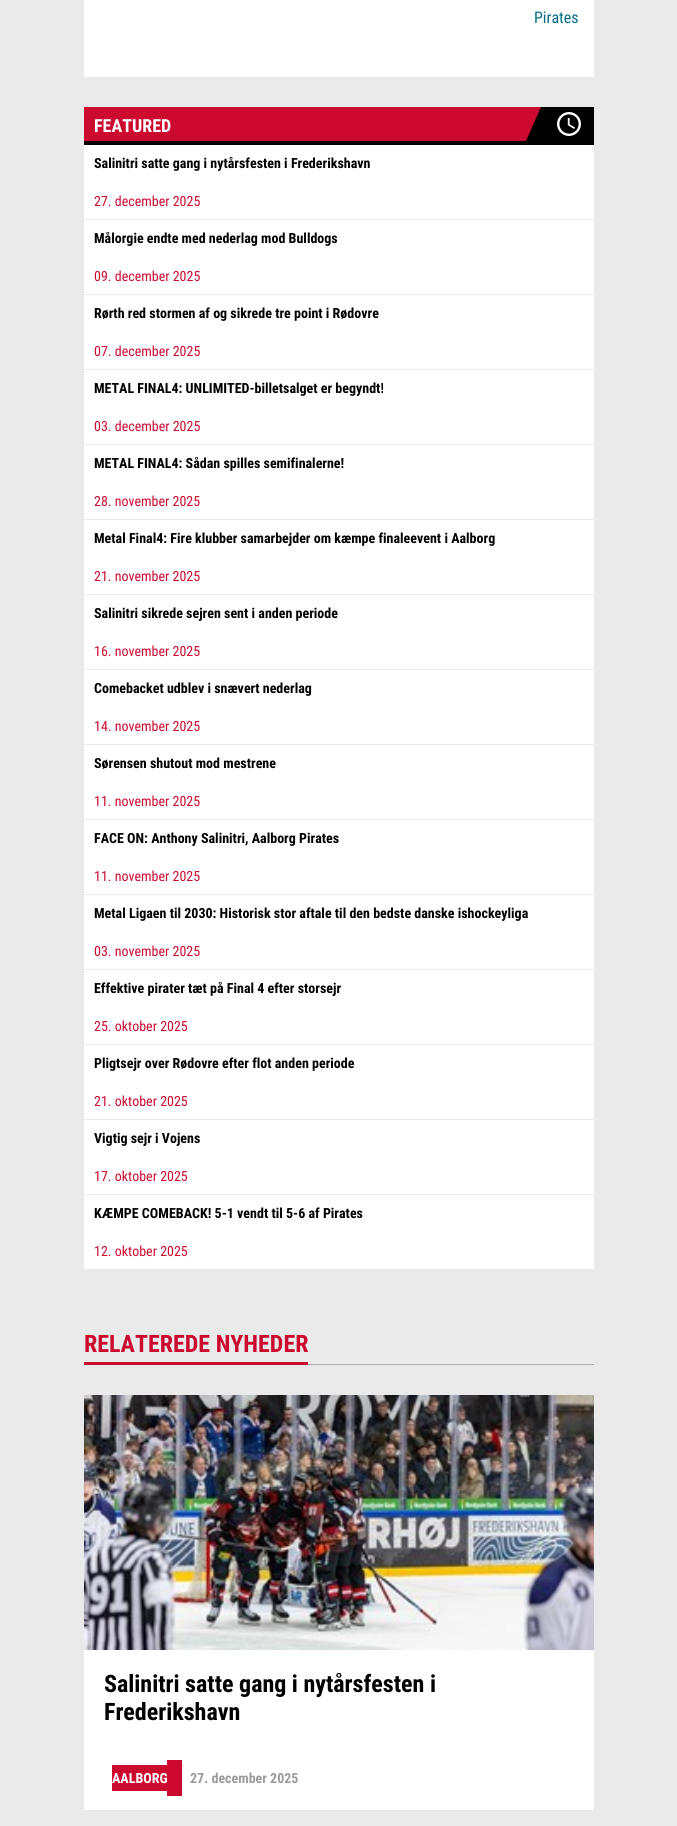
#include <cairo/cairo.h>
#include <math.h>
#include <stddef.h>

static cairo_t *cr;

static void use_color(int r, int g, int b) {
  cairo_set_source_rgb(cr, r / 255.0, g / 255.0, b / 255.0);
}

static void text(double x, double y, const char *s, const char *family, double size, int italic, int bold, int r, int g, int b) {
  cairo_select_font_face(cr, family, italic ? CAIRO_FONT_SLANT_ITALIC : CAIRO_FONT_SLANT_NORMAL,
    bold ? CAIRO_FONT_WEIGHT_BOLD : CAIRO_FONT_WEIGHT_NORMAL);
  cairo_set_font_size(cr, size);
  use_color(r, g, b);
  cairo_move_to(cr, x, y);
  cairo_show_text(cr, s);
}

static void box(double x, double y, double w, double h, int r, int g, int b) {
  use_color(r, g, b);
  cairo_rectangle(cr, x, y, w, h);
  cairo_fill(cr);
}

static void picture(const char *path, double x, double y, double w, double h) {
  cairo_surface_t *image = cairo_image_surface_create_from_png(path);
  cairo_save(cr);
  cairo_set_source_surface(cr, image, x, y);
  cairo_rectangle(cr, x, y, w, h);
  cairo_fill(cr);
  cairo_restore(cr);
  cairo_surface_destroy(image);
}

static void draw(void) {
  use_color(234, 234, 234);
  cairo_paint(cr);
  box(84, 0, 510, 77, 255, 255, 255);
  box(84, 145, 510, 1124, 255, 255, 255);
  box(84, 107, 457, 34, 204, 9, 47);
  box(84, 141, 510, 4, 0, 0, 0);
  cairo_save(cr);
  cairo_rectangle(cr, 84, 107, 510, 34);
  cairo_clip(cr);
  cairo_new_path(cr);
  cairo_move_to(cr, 541, 107);
  cairo_line_to(cr, 611, 107);
  cairo_line_to(cr, 596, 141);
  cairo_line_to(cr, 526, 141);
  cairo_close_path(cr);
  cairo_fill(cr);
  cairo_restore(cr);
  picture("img_01.png", 557, 112, 24, 24);
  box(84, 219, 510, 1, 234, 234, 234);
  box(84, 294, 510, 1, 234, 234, 234);
  box(84, 369, 510, 1, 234, 234, 234);
  box(84, 444, 510, 1, 234, 234, 234);
  box(84, 519, 510, 1, 234, 234, 234);
  box(84, 594, 510, 1, 234, 234, 234);
  box(84, 669, 510, 1, 234, 234, 234);
  box(84, 744, 510, 1, 234, 234, 234);
  box(84, 819, 510, 1, 234, 234, 234);
  box(84, 894, 510, 1, 234, 234, 234);
  box(84, 969, 510, 1, 234, 234, 234);
  box(84, 1044, 510, 1, 234, 234, 234);
  box(84, 1119, 510, 1, 234, 234, 234);
  box(84, 1194, 510, 1, 234, 234, 234);
  box(84, 1362, 224, 3, 204, 9, 47);
  box(308, 1364, 286, 1, 176, 176, 176);
  box(84, 1650, 510, 160, 255, 255, 255);
  picture("img_02.png", 84, 1395, 510, 255);
  box(167, 1760, 15, 36, 204, 9, 47);
  box(112, 1765, 55, 26, 204, 9, 47);
  cairo_new_path(cr);
  cairo_move_to(cr, 175.5, 1765);
  cairo_line_to(cr, 182.5, 1765);
  cairo_line_to(cr, 176.5, 1791);
  cairo_line_to(cr, 169.5, 1791);
  cairo_close_path(cr);
  cairo_fill(cr);
  text(534, 23, "Pirates", "Roboto Condensed", 16, 0, 0, 0, 107, 132);
  text(94, 132, "FEATURED", "Roboto Condensed", 18, 0, 1, 255, 255, 255);
  text(94, 168, "Salinitri satte gang i nytårsfesten i Frederikshavn", "Roboto Condensed", 14, 0, 1, 0, 0, 0);
  text(94, 206, "27. december 2025", "Roboto Condensed", 14, 0, 0, 204, 9, 47);
  text(94, 243, "Målorgie endte med nederlag mod Bulldogs", "Roboto Condensed", 14, 0, 1, 0, 0, 0);
  text(94, 281, "09. december 2025", "Roboto Condensed", 14, 0, 0, 204, 9, 47);
  text(94, 318, "Rørth red stormen af og sikrede tre point i Rødovre", "Roboto Condensed", 14, 0, 1, 0, 0, 0);
  text(94, 356, "07. december 2025", "Roboto Condensed", 14, 0, 0, 204, 9, 47);
  text(94, 393, "METAL FINAL4: UNLIMITED-billetsalget er begyndt!", "Roboto Condensed", 14, 0, 1, 0, 0, 0);
  text(94, 431, "03. december 2025", "Roboto Condensed", 14, 0, 0, 204, 9, 47);
  text(94, 468, "METAL FINAL4: Sådan spilles semifinalerne!", "Roboto Condensed", 14, 0, 1, 0, 0, 0);
  text(94, 506, "28. november 2025", "Roboto Condensed", 14, 0, 0, 204, 9, 47);
  text(94, 543, "Metal Final4: Fire klubber samarbejder om kæmpe finaleevent i Aalborg", "Roboto Condensed", 14, 0, 1, 0, 0, 0);
  text(94, 581, "21. november 2025", "Roboto Condensed", 14, 0, 0, 204, 9, 47);
  text(94, 618, "Salinitri sikrede sejren sent i anden periode", "Roboto Condensed", 14, 0, 1, 0, 0, 0);
  text(94, 656, "16. november 2025", "Roboto Condensed", 14, 0, 0, 204, 9, 47);
  text(94, 693, "Comebacket udblev i snævert nederlag", "Roboto Condensed", 14, 0, 1, 0, 0, 0);
  text(94, 731, "14. november 2025", "Roboto Condensed", 14, 0, 0, 204, 9, 47);
  text(94, 768, "Sørensen shutout mod mestrene", "Roboto Condensed", 14, 0, 1, 0, 0, 0);
  text(94, 806, "11. november 2025", "Roboto Condensed", 14, 0, 0, 204, 9, 47);
  text(94, 843, "FACE ON: Anthony Salinitri, Aalborg Pirates", "Roboto Condensed", 14, 0, 1, 0, 0, 0);
  text(94, 881, "11. november 2025", "Roboto Condensed", 14, 0, 0, 204, 9, 47);
  text(94, 918, "Metal Ligaen til 2030: Historisk stor aftale til den bedste danske ishockeyliga", "Roboto Condensed", 14, 0, 1, 0, 0, 0);
  text(94, 956, "03. november 2025", "Roboto Condensed", 14, 0, 0, 204, 9, 47);
  text(94, 993, "Effektive pirater tæt på Final 4 efter storsejr", "Roboto Condensed", 14, 0, 1, 0, 0, 0);
  text(94, 1031, "25. oktober 2025", "Roboto Condensed", 14, 0, 0, 204, 9, 47);
  text(94, 1068, "Pligtsejr over Rødovre efter flot anden periode", "Roboto Condensed", 14, 0, 1, 0, 0, 0);
  text(94, 1106, "21. oktober 2025", "Roboto Condensed", 14, 0, 0, 204, 9, 47);
  text(94, 1143, "Vigtig sejr i Vojens", "Roboto Condensed", 14, 0, 1, 0, 0, 0);
  text(94, 1181, "17. oktober 2025", "Roboto Condensed", 14, 0, 0, 204, 9, 47);
  text(94, 1218, "KÆMPE COMEBACK! 5-1 vendt til 5-6 af Pirates", "Roboto Condensed", 14, 0, 1, 0, 0, 0);
  text(94, 1256, "12. oktober 2025", "Roboto Condensed", 14, 0, 0, 204, 9, 47);
  text(84, 1352, "RELATEREDE NYHEDER", "Roboto Condensed", 24, 0, 1, 204, 9, 47);
  text(104, 1692, "Salinitri satte gang i nytårsfesten i", "Roboto Condensed", 24, 0, 1, 0, 0, 0);
  text(104, 1720, "Frederikshavn", "Roboto Condensed", 24, 0, 1, 0, 0, 0);
  text(112, 1783, "AALBORG", "Roboto Condensed", 14, 0, 1, 255, 255, 255);
  text(190, 1783, "27. december 2025", "Roboto Condensed", 14, 0, 1, 155, 155, 155);
}

int main(void) {
  cairo_surface_t *surface = cairo_image_surface_create(CAIRO_FORMAT_RGB24, 677, 1826);
  cr = cairo_create(surface);
  cairo_font_options_t *options = cairo_font_options_create();
  cairo_font_options_set_hint_metrics(options, CAIRO_HINT_METRICS_OFF);
  cairo_font_options_set_hint_style(options, CAIRO_HINT_STYLE_NONE);
  cairo_set_font_options(cr, options);
  cairo_set_miter_limit(cr, 4);
  draw();
  cairo_surface_write_to_png(surface, "out.png");
  cairo_font_options_destroy(options);
  cairo_destroy(cr);
  cairo_surface_destroy(surface);
  return 0;
}
